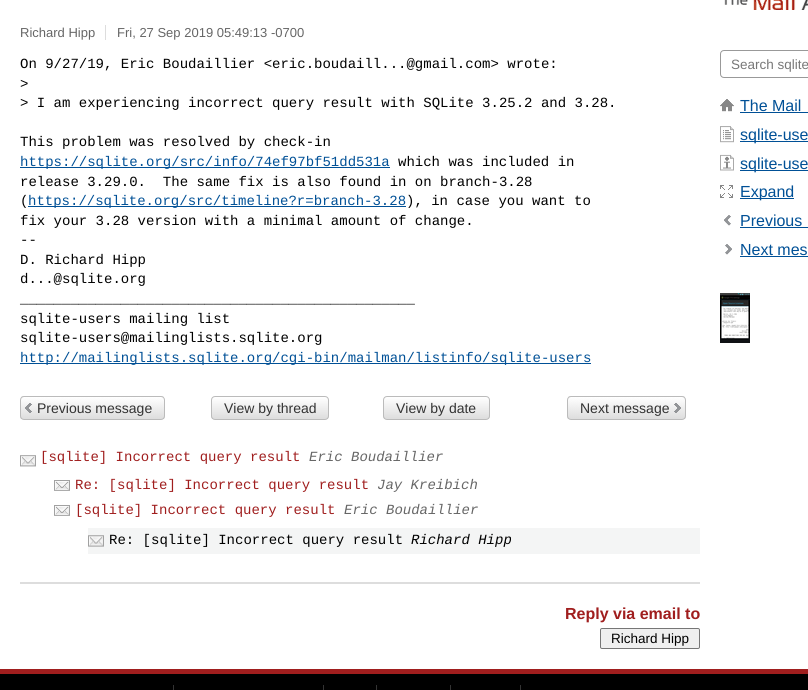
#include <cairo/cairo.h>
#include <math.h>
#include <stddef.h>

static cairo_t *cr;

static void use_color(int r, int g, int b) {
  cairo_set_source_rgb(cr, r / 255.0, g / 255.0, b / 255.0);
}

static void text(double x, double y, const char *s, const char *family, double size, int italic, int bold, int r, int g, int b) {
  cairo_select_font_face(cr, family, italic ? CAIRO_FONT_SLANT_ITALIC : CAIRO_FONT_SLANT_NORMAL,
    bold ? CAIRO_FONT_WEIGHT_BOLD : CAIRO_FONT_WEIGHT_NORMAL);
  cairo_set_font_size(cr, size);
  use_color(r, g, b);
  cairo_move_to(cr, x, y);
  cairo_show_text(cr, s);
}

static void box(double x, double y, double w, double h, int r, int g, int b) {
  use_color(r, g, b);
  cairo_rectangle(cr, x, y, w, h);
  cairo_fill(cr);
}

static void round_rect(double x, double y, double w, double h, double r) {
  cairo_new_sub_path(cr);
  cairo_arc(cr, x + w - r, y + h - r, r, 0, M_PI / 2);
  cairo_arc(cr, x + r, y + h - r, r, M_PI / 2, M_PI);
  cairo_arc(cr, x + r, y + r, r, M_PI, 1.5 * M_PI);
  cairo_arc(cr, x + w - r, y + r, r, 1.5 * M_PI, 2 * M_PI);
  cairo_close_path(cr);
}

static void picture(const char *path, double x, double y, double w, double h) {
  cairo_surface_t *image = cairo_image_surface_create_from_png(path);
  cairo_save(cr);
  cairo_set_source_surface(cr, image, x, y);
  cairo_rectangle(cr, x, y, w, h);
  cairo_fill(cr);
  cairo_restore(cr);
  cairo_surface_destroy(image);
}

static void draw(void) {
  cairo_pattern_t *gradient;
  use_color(255, 255, 255);
  cairo_paint(cr);
  box(105, 25, 1, 15, 221, 221, 221);
  box(20, 167, 370, 1, 0, 80, 150);
  box(28, 206, 378, 1, 0, 80, 150);
  box(20, 363, 571, 1, 0, 80, 150);
  picture("img_01.png", 20, 396, 145, 24);
  round_rect(20.5, 396.5, 144, 23, 3.5);
  use_color(187, 187, 187);
  cairo_set_line_width(cr, 1);
  cairo_stroke(cr);
  cairo_save(cr);
  round_rect(211, 396, 118, 24, 4);
  cairo_clip(cr);
  gradient = cairo_pattern_create_linear(270, 397, 270, 419);
  cairo_pattern_add_color_stop_rgba(gradient, 0, 1, 1, 1, 1);
  cairo_pattern_add_color_stop_rgba(gradient, 1, 0.867, 0.867, 0.867, 1);
  cairo_set_source(cr, gradient);
  cairo_pattern_destroy(gradient);
  cairo_rectangle(cr, 211, 397, 118, 22);
  cairo_fill(cr);
  cairo_restore(cr);
  round_rect(211.5, 396.5, 117, 23, 3.5);
  cairo_stroke(cr);
  cairo_save(cr);
  round_rect(383, 396, 107, 24, 4);
  cairo_clip(cr);
  gradient = cairo_pattern_create_linear(437, 397, 437, 419);
  cairo_pattern_add_color_stop_rgba(gradient, 0, 1, 1, 1, 1);
  cairo_pattern_add_color_stop_rgba(gradient, 1, 0.867, 0.867, 0.867, 1);
  cairo_set_source(cr, gradient);
  cairo_pattern_destroy(gradient);
  cairo_rectangle(cr, 383, 397, 107, 22);
  cairo_fill(cr);
  cairo_restore(cr);
  round_rect(383.5, 396.5, 106, 23, 3.5);
  cairo_stroke(cr);
  picture("img_02.png", 567, 396, 119, 24);
  round_rect(567.5, 396.5, 118, 23, 3.5);
  cairo_stroke(cr);
  picture("img_03.png", 20, 455, 16, 12);
  picture("img_04.png", 54, 480, 16, 11);
  picture("img_04.png", 54, 505, 16, 11);
  box(88, 528, 612, 26, 244, 245, 245);
  picture("img_05.png", 88, 535, 16, 12);
  box(20, 582, 680, 2, 221, 221, 221);
  use_color(239, 239, 239);
  round_rect(600.5, 628.5, 99, 20, 1.5);
  cairo_fill_preserve(cr);
  use_color(118, 118, 118);
  cairo_stroke(cr);
  picture("img_06.png", 724, 0, 84, 10);
  cairo_new_path(cr);
  cairo_move_to(cr, 724, 50.5);
  cairo_line_to(cr, 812.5, 50.5);
  cairo_line_to(cr, 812.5, 77.5);
  cairo_line_to(cr, 724, 77.5);
  cairo_curve_to(cr, 722, 77.5, 720.5, 76, 720.5, 74);
  cairo_line_to(cr, 720.5, 54);
  cairo_curve_to(cr, 720.5, 52, 722, 50.5, 724, 50.5);
  cairo_close_path(cr);
  use_color(153, 153, 153);
  cairo_stroke(cr);
  picture("img_07.png", 720, 99, 14, 13);
  box(740, 112, 68, 1, 0, 80, 150);
  picture("img_08.png", 720, 126, 14, 17);
  box(740, 141, 68, 1, 0, 80, 150);
  picture("img_09.png", 720, 154, 14, 17);
  box(740, 170, 68, 1, 0, 80, 150);
  picture("img_10.png", 720, 185, 13, 13);
  box(740, 198, 54, 1, 0, 80, 150);
  picture("img_11.png", 724, 215, 7, 11);
  box(740, 227, 68, 1, 0, 80, 150);
  picture("img_12.png", 725, 244, 7, 11);
  box(740, 256, 68, 1, 0, 80, 150);
  picture("img_13.png", 720, 293, 30, 50);
  box(0, 674, 808, 16, 0, 0, 0);
  box(0, 669, 808, 5, 160, 30, 30);
  box(173, 685, 1, 5, 51, 51, 51);
  box(323, 685, 1, 5, 51, 51, 51);
  box(376, 685, 1, 5, 51, 51, 51);
  box(450, 685, 1, 5, 51, 51, 51);
  box(520, 685, 1, 5, 51, 51, 51);
  text(20, 37, "Richard Hipp", "Liberation Sans", 13, 0, 0, 102, 102, 102);
  text(117, 37, "Fri, 27 Sep 2019 05:49:13 -0700", "Liberation Sans", 13, 0, 0, 102, 102, 102);
  text(20, 68, "On 9/27/19, Eric Boudaillier <eric.boudaill...@gmail.com> wrote:", "Liberation Mono", 14, 0, 0, 0, 0, 0);
  text(20, 88, ">", "Liberation Mono", 14, 0, 0, 0, 0, 0);
  text(20, 107, "> I am experiencing incorrect query result with SQLite 3.25.2 and 3.28.", "Liberation Mono", 14, 0, 0, 0, 0, 0);
  text(20, 146, "This problem was resolved by check-in", "Liberation Mono", 14, 0, 0, 0, 0, 0);
  text(20, 166, "https://sqlite.org/src/info/74ef97bf51dd531a", "Liberation Mono", 14, 0, 0, 0, 80, 150);
  text(398, 166, "which was included in", "Liberation Mono", 14, 0, 0, 0, 0, 0);
  text(20, 186, "release 3.29.0.  The same fix is also found in on branch-3.28", "Liberation Mono", 14, 0, 0, 0, 0, 0);
  text(20, 205, "(", "Liberation Mono", 14, 0, 0, 0, 0, 0);
  text(28, 205, "https://sqlite.org/src/timeline?r=branch-3.28", "Liberation Mono", 14, 0, 0, 0, 80, 150);
  text(406, 205, "), in case you want to", "Liberation Mono", 14, 0, 0, 0, 0, 0);
  text(20, 225, "fix your 3.28 version with a minimal amount of change.", "Liberation Mono", 14, 0, 0, 0, 0, 0);
  text(20, 244, "--", "Liberation Mono", 14, 0, 0, 0, 0, 0);
  text(20, 264, "D. Richard Hipp", "Liberation Mono", 14, 0, 0, 0, 0, 0);
  text(20, 283, "d...@sqlite.org", "Liberation Mono", 14, 0, 0, 0, 0, 0);
  text(20, 303, "_______________________________________________", "Liberation Mono", 14, 0, 0, 0, 0, 0);
  text(20, 323, "sqlite-users mailing list", "Liberation Mono", 14, 0, 0, 0, 0, 0);
  text(20, 342, "sqlite-users@mailinglists.sqlite.org", "Liberation Mono", 14, 0, 0, 0, 0, 0);
  text(20, 362, "http://mailinglists.sqlite.org/cgi-bin/mailman/listinfo/sqlite-users", "Liberation Mono", 14, 0, 0, 0, 80, 150);
  text(37, 413, "Previous message", "Liberation Sans", 14, 0, 0, 51, 51, 51);
  text(224, 413, "View by thread", "Liberation Sans", 14, 0, 0, 51, 51, 51);
  text(396, 413, "View by date", "Liberation Sans", 14, 0, 0, 51, 51, 51);
  text(580, 413, "Next message", "Liberation Sans", 14, 0, 0, 51, 51, 51);
  text(40, 461, "[sqlite] Incorrect query result", "Liberation Mono", 14, 0, 0, 160, 30, 30);
  text(309, 461, "Eric Boudaillier", "Liberation Mono", 14, 1, 0, 102, 102, 102);
  text(75, 489, "Re: [sqlite] Incorrect query result", "Liberation Mono", 14, 0, 0, 160, 30, 30);
  text(377, 489, "Jay Kreibich", "Liberation Mono", 14, 1, 0, 102, 102, 102);
  text(75, 514, "[sqlite] Incorrect query result", "Liberation Mono", 14, 0, 0, 160, 30, 30);
  text(344, 514, "Eric Boudaillier", "Liberation Mono", 14, 1, 0, 102, 102, 102);
  text(109, 544, "Re: [sqlite] Incorrect query result", "Liberation Mono", 14, 0, 0, 0, 0, 0);
  text(411, 544, "Richard Hipp", "Liberation Mono", 14, 1, 0, 0, 0, 0);
  text(565, 619, "Reply via email to", "Liberation Sans", 16, 0, 1, 160, 30, 30);
  text(611, 643, "Richard Hipp", "Liberation Sans", 13.5, 0, 0, 0, 0, 0);
  text(731, 69, "Search sqlite", "Liberation Sans", 13.5, 0, 0, 119, 119, 119);
  text(740, 111, "The Mail", "Liberation Sans", 16, 0, 0, 0, 80, 150);
  text(740, 140, "sqlite-use", "Liberation Sans", 16, 0, 0, 0, 80, 150);
  text(740, 169, "sqlite-use", "Liberation Sans", 16, 0, 0, 0, 80, 150);
  text(740, 197, "Expand", "Liberation Sans", 16, 0, 0, 0, 80, 150);
  text(740, 226, "Previous", "Liberation Sans", 16, 0, 0, 0, 80, 150);
  text(740, 255, "Next mes", "Liberation Sans", 16, 0, 0, 0, 80, 150);
}

int main(void) {
  cairo_surface_t *surface = cairo_image_surface_create(CAIRO_FORMAT_RGB24, 808, 690);
  cr = cairo_create(surface);
  cairo_font_options_t *options = cairo_font_options_create();
  cairo_font_options_set_hint_metrics(options, CAIRO_HINT_METRICS_OFF);
  cairo_font_options_set_hint_style(options, CAIRO_HINT_STYLE_NONE);
  cairo_set_font_options(cr, options);
  cairo_set_miter_limit(cr, 4);
  draw();
  cairo_surface_write_to_png(surface, "out.png");
  cairo_font_options_destroy(options);
  cairo_destroy(cr);
  cairo_surface_destroy(surface);
  return 0;
}
